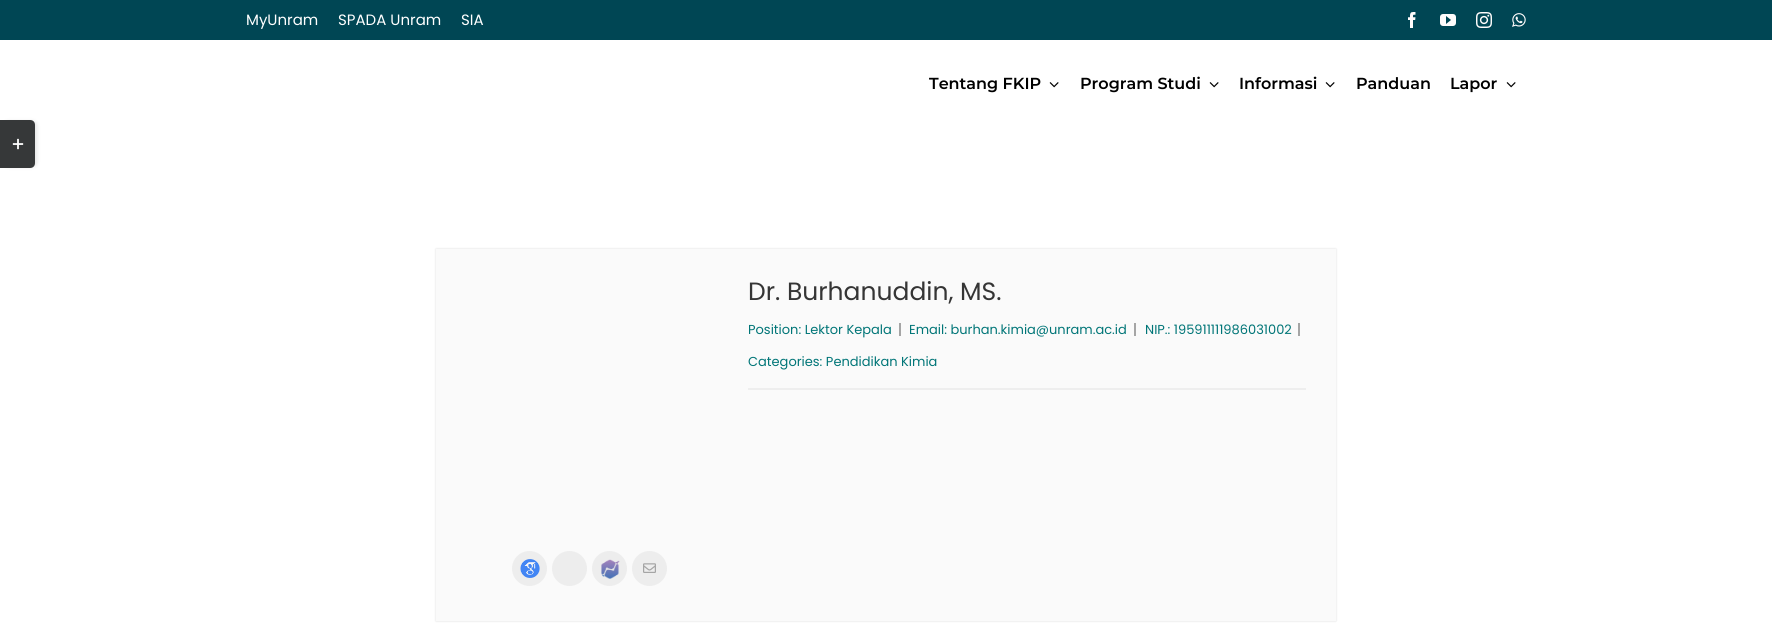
#include <cairo/cairo.h>
#include <math.h>
#include <stddef.h>

static cairo_t *cr;

static void use_color(int r, int g, int b) {
  cairo_set_source_rgb(cr, r / 255.0, g / 255.0, b / 255.0);
}

static void text(double x, double y, const char *s, const char *family, double size, int italic, int bold, int r, int g, int b) {
  cairo_select_font_face(cr, family, italic ? CAIRO_FONT_SLANT_ITALIC : CAIRO_FONT_SLANT_NORMAL,
    bold ? CAIRO_FONT_WEIGHT_BOLD : CAIRO_FONT_WEIGHT_NORMAL);
  cairo_set_font_size(cr, size);
  use_color(r, g, b);
  cairo_move_to(cr, x, y);
  cairo_show_text(cr, s);
}

static void box(double x, double y, double w, double h, int r, int g, int b) {
  use_color(r, g, b);
  cairo_rectangle(cr, x, y, w, h);
  cairo_fill(cr);
}

static void round_rect(double x, double y, double w, double h, double r) {
  cairo_new_sub_path(cr);
  cairo_arc(cr, x + w - r, y + h - r, r, 0, M_PI / 2);
  cairo_arc(cr, x + r, y + h - r, r, M_PI / 2, M_PI);
  cairo_arc(cr, x + r, y + r, r, M_PI, 1.5 * M_PI);
  cairo_arc(cr, x + w - r, y + r, r, 1.5 * M_PI, 2 * M_PI);
  cairo_close_path(cr);
}

static void shadow(double x, double y, double w, double h, double r, double blur, double alpha) {
  cairo_push_group_with_content(cr, CAIRO_CONTENT_ALPHA);
  cairo_set_operator(cr, CAIRO_OPERATOR_SOURCE);
  for (int i = 15; i >= -15 && fmin(w, h) + blur * i / 3 > 0; i -= 2) {
    double e = blur * i / 6;
    cairo_set_source_rgba(cr, 0, 0, 0, alpha * erfc((i - 1) / 8.5) / 2);
    round_rect(x - e, y - e, w + 2 * e, h + 2 * e, fmax(0, fmin(r + e + blur * .6, fmin(w, h) / 2 + e)));
    cairo_fill(cr);
  }
  cairo_pattern_t *soft = cairo_pop_group(cr);
  cairo_mask(cr, soft);
  cairo_pattern_destroy(soft);
}

static void picture(const char *path, double x, double y, double w, double h) {
  cairo_surface_t *image = cairo_image_surface_create_from_png(path);
  cairo_save(cr);
  cairo_set_source_surface(cr, image, x, y);
  cairo_rectangle(cr, x, y, w, h);
  cairo_fill(cr);
  cairo_restore(cr);
  cairo_surface_destroy(image);
}

static void draw(void) {
  use_color(255, 255, 255);
  cairo_paint(cr);
  box(0, 0, 1772, 40, 0, 70, 84);
  picture("img_01.png", 1408, 12, 8, 16);
  picture("img_02.png", 1440, 14, 16, 12);
  picture("img_03.png", 1476, 12, 16, 16);
  picture("img_04.png", 1512, 13, 14, 14);
  picture("img_05.png", 1049, 82, 10, 6);
  picture("img_05.png", 1209, 82, 10, 6);
  picture("img_05.png", 1325, 82, 10, 6);
  picture("img_05.png", 1506, 82, 10, 6);
  use_color(0, 0, 0);
  shadow(5, 122, 31, 44, 3, 2.5, 0.14);
  use_color(54, 56, 57);
  cairo_new_path(cr);
  cairo_move_to(cr, 0, 120);
  cairo_line_to(cr, 30, 120);
  cairo_curve_to(cr, 33, 120, 35, 122, 35, 125);
  cairo_line_to(cr, 35, 163);
  cairo_curve_to(cr, 35, 166, 33, 168, 30, 168);
  cairo_line_to(cr, 0, 168);
  cairo_close_path(cr);
  cairo_fill(cr);
  picture("img_06.png", 12, 138, 12, 12);
  use_color(0, 0, 0);
  shadow(436, 249, 900, 372, 0, 1, 0.15);
  box(436, 249, 900, 372, 250, 250, 250);
  box(748, 388, 558, 2, 238, 238, 238);
  box(899, 323, 2, 13, 165, 165, 165);
  box(1134, 323, 2, 13, 165, 165, 165);
  box(1298, 323, 2, 13, 165, 165, 165);
  use_color(237, 237, 237);
  cairo_arc(cr, 529.5, 568.5, 17.5, 0, 2 * M_PI);
  cairo_fill(cr);
  picture("img_07.png", 520, 559, 20, 19);
  cairo_arc(cr, 569.5, 568.5, 17.5, 0, 2 * M_PI);
  cairo_fill(cr);
  cairo_arc(cr, 609.5, 568.5, 17.5, 0, 2 * M_PI);
  cairo_fill(cr);
  picture("img_08.png", 601, 559, 19, 20);
  cairo_arc(cr, 649.5, 568.5, 17.5, 0, 2 * M_PI);
  cairo_fill(cr);
  picture("img_09.png", 643, 563, 13, 10);
  text(246, 25, "MyUnram", "Poppins", 15, 0, 0, 255, 255, 255);
  text(338, 25, "SPADA Unram", "Poppins", 15, 0, 0, 255, 255, 255);
  text(461, 25, "SIA", "Poppins", 15, 0, 0, 255, 255, 255);
  text(929, 89, "Tentang FKIP", "Montserrat SemiBold", 16, 0, 0, 0, 0, 0);
  text(1080, 89, "Program Studi", "Montserrat SemiBold", 16, 0, 0, 0, 0, 0);
  text(1239, 89, "Informasi", "Montserrat SemiBold", 16, 0, 0, 0, 0, 0);
  text(1356, 89, "Panduan", "Montserrat SemiBold", 16, 0, 0, 0, 0, 0);
  text(1450, 89, "Lapor", "Montserrat SemiBold", 16, 0, 0, 0, 0, 0);
  text(748, 300, "Dr. Burhanuddin, MS.", "Poppins", 25, 0, 0, 53, 53, 53);
  text(748, 334, "Position: Lektor Kepala", "Poppins", 13, 0, 0, 0, 117, 119);
  text(909, 334, "Email: burhan.kimia@unram.ac.id", "Poppins", 13, 0, 0, 0, 117, 119);
  text(1145, 334, "NIP.: 195911111986031002", "Poppins", 13, 0, 0, 0, 117, 119);
  text(748, 366, "Categories: Pendidikan Kimia", "Poppins", 13, 0, 0, 0, 117, 119);
}

int main(void) {
  cairo_surface_t *surface = cairo_image_surface_create(CAIRO_FORMAT_RGB24, 1772, 629);
  cr = cairo_create(surface);
  cairo_font_options_t *options = cairo_font_options_create();
  cairo_font_options_set_hint_metrics(options, CAIRO_HINT_METRICS_OFF);
  cairo_font_options_set_hint_style(options, CAIRO_HINT_STYLE_NONE);
  cairo_set_font_options(cr, options);
  cairo_set_miter_limit(cr, 4);
  draw();
  cairo_surface_write_to_png(surface, "out.png");
  cairo_font_options_destroy(options);
  cairo_destroy(cr);
  cairo_surface_destroy(surface);
  return 0;
}
